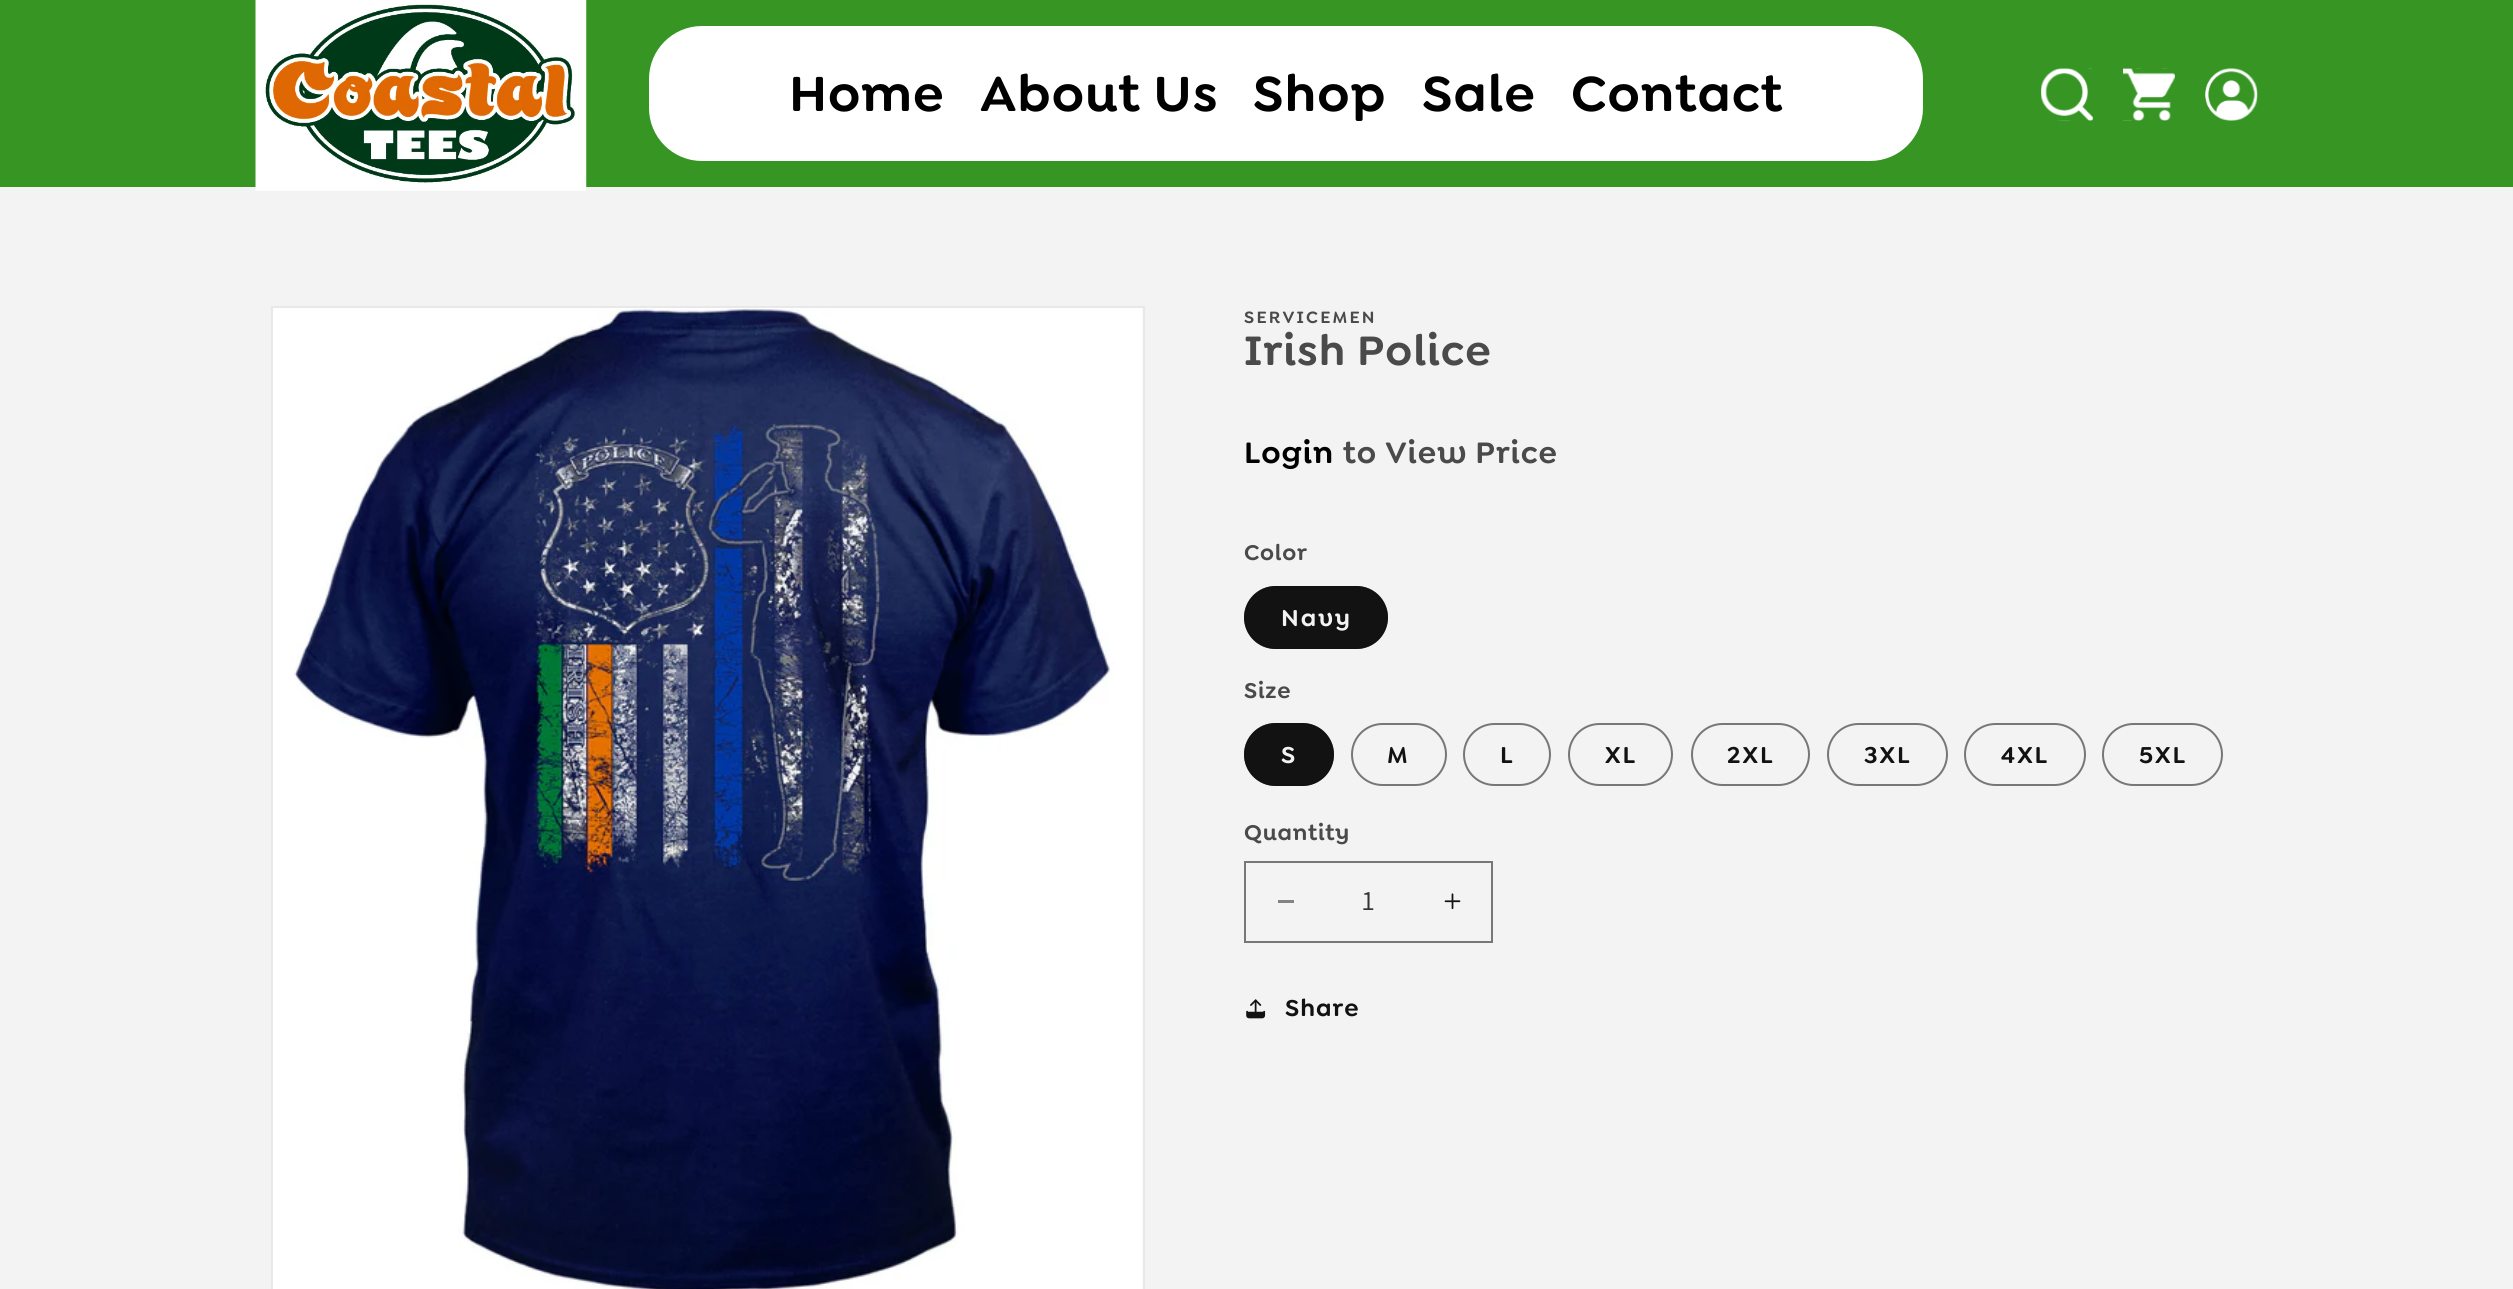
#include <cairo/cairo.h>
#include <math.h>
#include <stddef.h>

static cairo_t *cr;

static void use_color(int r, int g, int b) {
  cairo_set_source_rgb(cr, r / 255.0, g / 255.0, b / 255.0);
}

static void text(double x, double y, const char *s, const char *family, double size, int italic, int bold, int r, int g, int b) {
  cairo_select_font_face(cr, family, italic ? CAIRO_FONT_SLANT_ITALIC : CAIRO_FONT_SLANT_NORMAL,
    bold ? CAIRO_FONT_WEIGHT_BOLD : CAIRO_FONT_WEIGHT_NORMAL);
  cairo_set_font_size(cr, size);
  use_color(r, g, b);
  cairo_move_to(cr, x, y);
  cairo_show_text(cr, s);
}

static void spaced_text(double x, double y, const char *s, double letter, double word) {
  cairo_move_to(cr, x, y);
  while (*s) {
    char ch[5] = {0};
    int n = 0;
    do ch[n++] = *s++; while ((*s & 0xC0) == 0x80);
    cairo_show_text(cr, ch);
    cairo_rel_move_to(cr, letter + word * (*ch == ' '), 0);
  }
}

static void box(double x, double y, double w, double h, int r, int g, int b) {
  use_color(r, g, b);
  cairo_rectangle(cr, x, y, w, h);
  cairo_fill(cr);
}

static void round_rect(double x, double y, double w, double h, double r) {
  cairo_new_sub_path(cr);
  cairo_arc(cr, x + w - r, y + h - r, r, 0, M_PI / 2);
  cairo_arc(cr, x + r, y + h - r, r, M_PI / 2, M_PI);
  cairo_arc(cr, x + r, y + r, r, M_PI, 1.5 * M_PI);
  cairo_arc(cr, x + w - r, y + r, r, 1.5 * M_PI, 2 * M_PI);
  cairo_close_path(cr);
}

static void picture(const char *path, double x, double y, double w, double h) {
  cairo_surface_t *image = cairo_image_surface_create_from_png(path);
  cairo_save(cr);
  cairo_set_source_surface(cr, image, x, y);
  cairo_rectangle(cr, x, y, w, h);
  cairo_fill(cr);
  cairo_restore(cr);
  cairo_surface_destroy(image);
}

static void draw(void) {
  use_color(54, 149, 35);
  cairo_paint(cr);
  box(0, 187, 2513, 1102, 243, 243, 243);
  picture("img_01.png", 255, 0, 332, 191);
  use_color(255, 255, 255);
  round_rect(649, 26, 1274, 135, 53);
  cairo_fill(cr);
  picture("img_02.png", 2041, 68, 52, 53);
  picture("img_03.png", 2123, 68, 52, 53);
  picture("img_04.png", 2205, 68, 53, 53);
  cairo_rectangle(cr, 272, 307, 872, 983);
  use_color(232, 232, 232);
  cairo_stroke(cr);
  picture("img_05.png", 273, 308, 870, 981);
  use_color(18, 18, 18);
  round_rect(1244, 586, 144, 63, 31.5);
  cairo_fill(cr);
  round_rect(1245, 587, 142, 61, 30.5);
  cairo_set_source_rgba(cr, 0.071, 0.071, 0.071, 0.55);
  cairo_stroke(cr);
  use_color(18, 18, 18);
  round_rect(1244, 723, 90, 63, 31.5);
  cairo_fill(cr);
  round_rect(1245, 724, 88, 61, 30.5);
  cairo_set_source_rgba(cr, 0.071, 0.071, 0.071, 0.55);
  cairo_stroke(cr);
  round_rect(1352, 724, 94, 61, 30.5);
  use_color(119, 119, 119);
  cairo_stroke(cr);
  round_rect(1464, 724, 86, 61, 30.5);
  cairo_stroke(cr);
  round_rect(1569, 724, 103, 61, 30.5);
  cairo_stroke(cr);
  round_rect(1692, 724, 117, 61, 30.5);
  cairo_stroke(cr);
  round_rect(1828, 724, 119, 61, 30.5);
  cairo_stroke(cr);
  round_rect(1965, 724, 120, 61, 30.5);
  cairo_stroke(cr);
  round_rect(2103, 724, 119, 61, 30.5);
  cairo_stroke(cr);
  box(1278, 900, 16, 3, 131, 131, 131);
  picture("img_06.png", 1444, 893, 17, 17);
  cairo_rectangle(cr, 1245, 862, 247, 80);
  use_color(119, 119, 119);
  cairo_stroke(cr);
  picture("img_07.png", 1246, 999, 20, 20);
  cairo_select_font_face(cr, "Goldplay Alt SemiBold", CAIRO_FONT_SLANT_NORMAL, CAIRO_FONT_WEIGHT_NORMAL);
  cairo_set_font_size(cr, 52.5);
  use_color(0, 0, 0);
  spaced_text(789, 111, "Home", 1, 0);
  spaced_text(980, 111, "About Us", 1, 0);
  spaced_text(1253, 111, "Shop", 1, 0);
  spaced_text(1422, 111, "Sale", 1, 0);
  spaced_text(1571, 111, "Contact", 1, 0);
  cairo_set_font_size(cr, 17.5);
  use_color(74, 74, 74);
  spaced_text(1244, 323, "SERVICEMEN", 2.25, 0);
  cairo_set_font_size(cr, 43.75);
  spaced_text(1244, 365, "Irish Police", 1, 0);
  cairo_set_font_size(cr, 31.5);
  use_color(0, 0, 0);
  spaced_text(1244, 463, "Login", 1, 0);
  use_color(74, 74, 74);
  spaced_text(1343, 463, "to View Price", 1, 0);
  cairo_set_font_size(cr, 22.75);
  spaced_text(1244, 560, "Color", 0.75, 0);
  cairo_set_font_size(cr, 24.5);
  use_color(243, 243, 243);
  spaced_text(1281, 626, "Navy", 2, 0);
  cairo_set_font_size(cr, 22.75);
  use_color(74, 74, 74);
  spaced_text(1244, 698, "Size", 0.75, 0);
  cairo_set_font_size(cr, 24.5);
  use_color(243, 243, 243);
  spaced_text(1281, 763, "S", 2, 0);
  use_color(18, 18, 18);
  spaced_text(1387, 763, "M", 2, 0);
  spaced_text(1500, 763, "L", 2, 0);
  spaced_text(1605, 763, "XL", 2, 0);
  spaced_text(1727, 763, "2XL", 2, 0);
  spaced_text(1864, 763, "3XL", 2, 0);
  spaced_text(2001, 763, "4XL", 2, 0);
  spaced_text(2139, 763, "5XL", 2, 0);
  cairo_set_font_size(cr, 22.75);
  use_color(74, 74, 74);
  spaced_text(1244, 840, "Quantity", 0.75, 0);
  text(1362, 910, "1", "Assistant", 28, 0, 0, 52, 52, 52);
  cairo_select_font_face(cr, "Goldplay Alt SemiBold", CAIRO_FONT_SLANT_NORMAL, CAIRO_FONT_WEIGHT_NORMAL);
  cairo_set_font_size(cr, 24.5);
  use_color(18, 18, 18);
  spaced_text(1285, 1016, "Share", 1, 0);
}

int main(void) {
  cairo_surface_t *surface = cairo_image_surface_create(CAIRO_FORMAT_RGB24, 2513, 1289);
  cr = cairo_create(surface);
  cairo_font_options_t *options = cairo_font_options_create();
  cairo_font_options_set_hint_metrics(options, CAIRO_HINT_METRICS_OFF);
  cairo_font_options_set_hint_style(options, CAIRO_HINT_STYLE_NONE);
  cairo_set_font_options(cr, options);
  cairo_set_miter_limit(cr, 4);
  draw();
  cairo_surface_write_to_png(surface, "out.png");
  cairo_font_options_destroy(options);
  cairo_destroy(cr);
  cairo_surface_destroy(surface);
  return 0;
}
